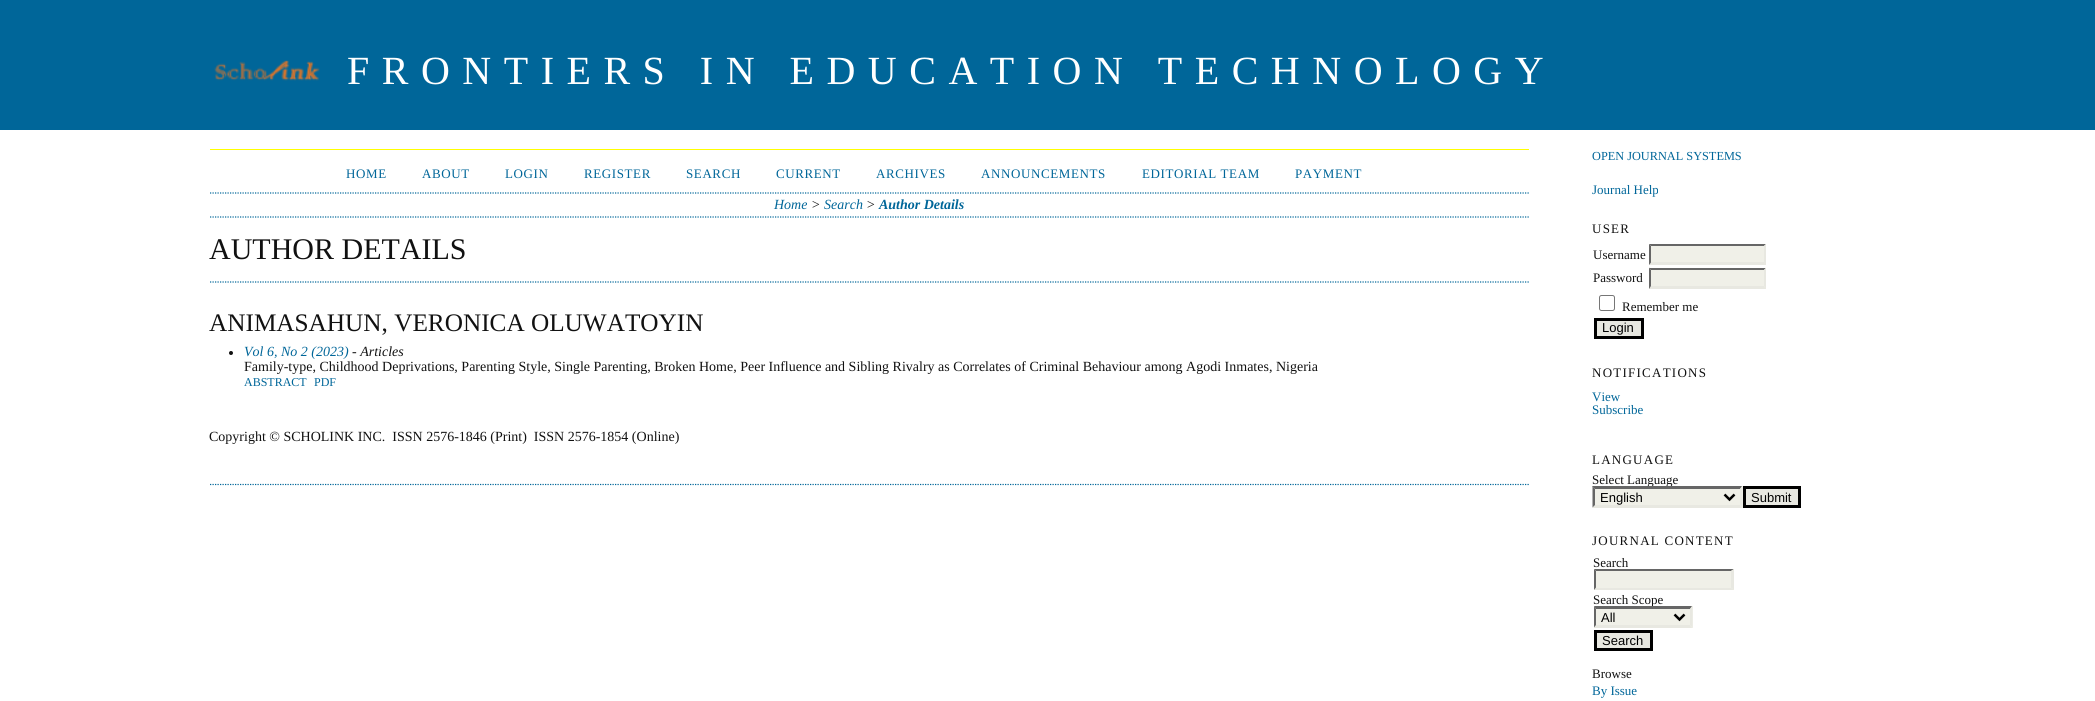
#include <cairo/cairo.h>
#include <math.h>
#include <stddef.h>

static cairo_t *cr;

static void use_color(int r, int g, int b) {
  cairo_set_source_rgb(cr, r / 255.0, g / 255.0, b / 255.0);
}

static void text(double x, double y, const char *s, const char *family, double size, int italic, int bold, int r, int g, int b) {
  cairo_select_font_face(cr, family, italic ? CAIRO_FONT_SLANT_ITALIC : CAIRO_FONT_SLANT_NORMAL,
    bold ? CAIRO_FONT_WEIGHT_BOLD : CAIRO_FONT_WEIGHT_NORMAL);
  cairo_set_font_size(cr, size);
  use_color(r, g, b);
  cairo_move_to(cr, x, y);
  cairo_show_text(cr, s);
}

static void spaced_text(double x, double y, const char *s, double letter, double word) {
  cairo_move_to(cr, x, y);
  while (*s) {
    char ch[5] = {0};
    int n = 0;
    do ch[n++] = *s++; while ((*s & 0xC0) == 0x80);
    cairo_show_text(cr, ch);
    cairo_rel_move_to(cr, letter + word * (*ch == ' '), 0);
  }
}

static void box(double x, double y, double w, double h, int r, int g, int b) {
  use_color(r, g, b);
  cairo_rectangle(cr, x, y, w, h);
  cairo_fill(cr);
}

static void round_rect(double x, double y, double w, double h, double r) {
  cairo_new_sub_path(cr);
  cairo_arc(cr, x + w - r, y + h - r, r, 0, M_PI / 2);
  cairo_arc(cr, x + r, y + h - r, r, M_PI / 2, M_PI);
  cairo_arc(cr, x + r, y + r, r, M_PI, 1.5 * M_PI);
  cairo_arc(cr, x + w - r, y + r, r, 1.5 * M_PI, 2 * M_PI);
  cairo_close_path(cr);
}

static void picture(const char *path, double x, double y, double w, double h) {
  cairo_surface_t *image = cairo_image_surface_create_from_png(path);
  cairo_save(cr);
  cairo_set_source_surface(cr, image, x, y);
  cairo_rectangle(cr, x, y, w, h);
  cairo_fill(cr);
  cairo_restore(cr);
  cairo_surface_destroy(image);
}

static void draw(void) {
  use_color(255, 255, 255);
  cairo_paint(cr);
  box(0, 0, 2095, 130, 0, 102, 153);
  picture("img_01.png", 214, 60, 106, 21);
  box(210, 149, 1319, 1, 255, 255, 0);
  cairo_new_path(cr);
  cairo_move_to(cr, 210, 484.5);
  cairo_line_to(cr, 1529, 484.5);
  use_color(0, 102, 153);
  cairo_set_line_width(cr, 1.2);
  cairo_set_dash(cr, (double[]){1.25, 1.25}, 2, 0);
  cairo_stroke(cr);
  cairo_new_path(cr);
  cairo_move_to(cr, 210, 193);
  cairo_line_to(cr, 1529, 193);
  cairo_stroke(cr);
  cairo_new_path(cr);
  cairo_move_to(cr, 210, 217);
  cairo_line_to(cr, 1529, 217);
  cairo_stroke(cr);
  cairo_new_path(cr);
  cairo_move_to(cr, 210, 282);
  cairo_line_to(cr, 1529, 282);
  cairo_stroke(cr);
  use_color(17, 17, 17);
  cairo_arc(cr, 231, 353, 2, 0, 2 * M_PI);
  cairo_fill(cr);
  box(1649, 244, 117, 21, 240, 240, 232);
  use_color(102, 102, 102);
  cairo_new_path(cr);
  cairo_move_to(cr, 1649, 244);
  cairo_line_to(cr, 1766, 244);
  cairo_line_to(cr, 1764, 246);
  cairo_line_to(cr, 1651, 246);
  cairo_close_path(cr);
  cairo_fill(cr);
  use_color(232, 232, 225);
  cairo_new_path(cr);
  cairo_move_to(cr, 1766, 244);
  cairo_line_to(cr, 1766, 265);
  cairo_line_to(cr, 1764, 262.5);
  cairo_line_to(cr, 1764, 246);
  cairo_close_path(cr);
  cairo_fill(cr);
  cairo_new_path(cr);
  cairo_move_to(cr, 1766, 265);
  cairo_line_to(cr, 1649, 265);
  cairo_line_to(cr, 1651, 262);
  cairo_line_to(cr, 1764, 262);
  cairo_close_path(cr);
  cairo_fill(cr);
  use_color(102, 102, 102);
  cairo_new_path(cr);
  cairo_move_to(cr, 1649, 265);
  cairo_line_to(cr, 1649, 244);
  cairo_line_to(cr, 1651, 246);
  cairo_line_to(cr, 1651, 262.5);
  cairo_close_path(cr);
  cairo_fill(cr);
  box(1649, 268, 117, 21, 240, 240, 232);
  use_color(102, 102, 102);
  cairo_new_path(cr);
  cairo_move_to(cr, 1649, 268);
  cairo_line_to(cr, 1766, 268);
  cairo_line_to(cr, 1764, 270);
  cairo_line_to(cr, 1651, 270);
  cairo_close_path(cr);
  cairo_fill(cr);
  use_color(232, 232, 225);
  cairo_new_path(cr);
  cairo_move_to(cr, 1766, 267.5);
  cairo_line_to(cr, 1766, 289);
  cairo_line_to(cr, 1764, 286);
  cairo_line_to(cr, 1764, 270);
  cairo_close_path(cr);
  cairo_fill(cr);
  cairo_new_path(cr);
  cairo_move_to(cr, 1766, 289);
  cairo_line_to(cr, 1649, 289);
  cairo_line_to(cr, 1651, 286);
  cairo_line_to(cr, 1764, 286);
  cairo_close_path(cr);
  cairo_fill(cr);
  use_color(102, 102, 102);
  cairo_new_path(cr);
  cairo_move_to(cr, 1649, 289);
  cairo_line_to(cr, 1649, 267.5);
  cairo_line_to(cr, 1651, 270);
  cairo_line_to(cr, 1651, 286);
  cairo_close_path(cr);
  cairo_fill(cr);
  round_rect(1599.5, 295.5, 15, 15, 2);
  use_color(118, 118, 118);
  cairo_set_line_width(cr, 1);
  cairo_set_dash(cr, NULL, 0, 0);
  cairo_stroke(cr);
  use_color(232, 232, 225);
  cairo_rectangle(cr, 1595.5, 319.5, 47, 18);
  cairo_fill_preserve(cr);
  use_color(0, 0, 0);
  cairo_set_line_width(cr, 3);
  cairo_stroke(cr);
  use_color(232, 232, 225);
  cairo_rectangle(cr, 1744.5, 487.5, 55, 19);
  cairo_fill_preserve(cr);
  use_color(0, 0, 0);
  cairo_stroke(cr);
  box(1594, 569, 140, 21, 240, 240, 232);
  use_color(102, 102, 102);
  cairo_new_path(cr);
  cairo_move_to(cr, 1594, 569);
  cairo_line_to(cr, 1734, 569);
  cairo_line_to(cr, 1731, 571);
  cairo_line_to(cr, 1596, 571);
  cairo_close_path(cr);
  cairo_fill(cr);
  use_color(232, 232, 225);
  cairo_new_path(cr);
  cairo_move_to(cr, 1734, 569);
  cairo_line_to(cr, 1734, 590);
  cairo_line_to(cr, 1731, 587.5);
  cairo_line_to(cr, 1731, 571);
  cairo_close_path(cr);
  cairo_fill(cr);
  cairo_new_path(cr);
  cairo_move_to(cr, 1734, 590);
  cairo_line_to(cr, 1594, 590);
  cairo_line_to(cr, 1596, 588);
  cairo_line_to(cr, 1731, 588);
  cairo_close_path(cr);
  cairo_fill(cr);
  use_color(102, 102, 102);
  cairo_new_path(cr);
  cairo_move_to(cr, 1594, 590);
  cairo_line_to(cr, 1594, 569);
  cairo_line_to(cr, 1596, 571);
  cairo_line_to(cr, 1596, 587.5);
  cairo_close_path(cr);
  cairo_fill(cr);
  use_color(232, 232, 225);
  cairo_rectangle(cr, 1595.5, 631.5, 56, 18);
  cairo_fill_preserve(cr);
  use_color(0, 0, 0);
  cairo_stroke(cr);
  cairo_select_font_face(cr, "Liberation Serif", CAIRO_FONT_SLANT_NORMAL, CAIRO_FONT_WEIGHT_NORMAL);
  cairo_set_font_size(cr, 40);
  use_color(255, 255, 255);
  spaced_text(347, 84, "FRONTIERS IN EDUCATION TECHNOLOGY", 12.5, 0);
  cairo_set_font_size(cr, 13);
  use_color(0, 102, 153);
  spaced_text(346, 178, "HOME", 0.6, 0);
  spaced_text(422, 178, "ABOUT", 0.6, 0);
  spaced_text(505, 178, "LOGIN", 0.6, 0);
  spaced_text(584, 178, "REGISTER", 0.6, 0);
  spaced_text(686, 178, "SEARCH", 0.6, 0);
  spaced_text(776, 178, "CURRENT", 0.6, 0);
  spaced_text(876, 178, "ARCHIVES", 0.6, 0);
  spaced_text(981, 178, "ANNOUNCEMENTS", 0.6, 0);
  spaced_text(1142, 178, "EDITORIAL TEAM", 0.6, 0);
  spaced_text(1295, 178, "PAYMENT", 0.6, 0);
  text(774, 209, "Home", "Liberation Serif", 14, 1, 0, 0, 102, 153);
  text(811, 209, ">", "Liberation Serif", 14, 1, 0, 17, 17, 17);
  text(824, 209, "Search", "Liberation Serif", 14, 1, 0, 0, 102, 153);
  text(866, 209, ">", "Liberation Serif", 14, 1, 0, 17, 17, 17);
  text(879, 209, "Author Details", "Liberation Serif", 14, 1, 1, 0, 102, 153);
  text(209, 259, "AUTHOR DETAILS", "Liberation Serif", 30, 0, 0, 17, 17, 17);
  text(209, 331, "ANIMASAHUN, VERONICA OLUWATOYIN", "Liberation Serif", 25.25, 0, 0, 17, 17, 17);
  text(244, 356, "Vol 6, No 2 (2023)", "Liberation Serif", 14, 1, 0, 0, 102, 153);
  text(352, 356, "- Articles", "Liberation Serif", 14, 1, 0, 17, 17, 17);
  text(244, 371, "Family-type, Childhood Deprivations, Parenting Style, Single Parenting, Broken Home, Peer Influence and Sibling Rivalry as Correlates of Criminal Behaviour among Agodi Inmates, Nigeria", "Liberation Serif", 14, 0, 0, 17, 17, 17);
  text(244, 386, "ABSTRACT", "Liberation Serif", 12, 0, 0, 0, 102, 153);
  text(314, 386, "PDF", "Liberation Serif", 12, 0, 0, 0, 102, 153);
  text(209, 441, "Copyright © SCHOLINK INC.  ISSN 2576-1846 (Print)  ISSN 2576-1854 (Online)", "Liberation Serif", 14, 0, 0, 17, 17, 17);
  text(1592, 160, "OPEN JOURNAL SYSTEMS", "Liberation Serif", 12.3, 0, 0, 0, 102, 153);
  text(1592, 194, "Journal Help", "Liberation Serif", 13, 0, 0, 0, 102, 153);
  use_color(17, 17, 17);
  spaced_text(1592, 233, "USER", 1.25, 0);
  text(1593, 259, "Username", "Liberation Serif", 13, 0, 0, 17, 17, 17);
  text(1593, 282, "Password", "Liberation Serif", 13, 0, 0, 17, 17, 17);
  text(1622, 311, "Remember me", "Liberation Serif", 13, 0, 0, 17, 17, 17);
  text(1602, 332, "Login", "Liberation Sans", 13, 0, 0, 0, 0, 0);
  cairo_select_font_face(cr, "Liberation Serif", CAIRO_FONT_SLANT_NORMAL, CAIRO_FONT_WEIGHT_NORMAL);
  use_color(17, 17, 17);
  spaced_text(1592, 377, "NOTIFICATIONS", 1.25, 0);
  text(1592, 401, "View", "Liberation Serif", 13, 0, 0, 0, 102, 153);
  text(1592, 414, "Subscribe", "Liberation Serif", 13, 0, 0, 0, 102, 153);
  use_color(17, 17, 17);
  spaced_text(1592, 464, "LANGUAGE", 1.25, 0);
  text(1592, 484, "Select Language", "Liberation Serif", 13, 0, 0, 17, 17, 17);
  box(1593, 486, 150, 22, 240, 240, 232);
  use_color(102, 102, 102);
  cairo_new_path(cr);
  cairo_move_to(cr, 1592, 486);
  cairo_line_to(cr, 1742, 486);
  cairo_line_to(cr, 1740, 489);
  cairo_line_to(cr, 1595, 489);
  cairo_close_path(cr);
  cairo_fill(cr);
  use_color(232, 232, 225);
  cairo_new_path(cr);
  cairo_move_to(cr, 1742.5, 486);
  cairo_line_to(cr, 1742.5, 507.5);
  cairo_line_to(cr, 1740, 505);
  cairo_line_to(cr, 1740, 489);
  cairo_close_path(cr);
  cairo_fill(cr);
  cairo_new_path(cr);
  cairo_move_to(cr, 1742, 508);
  cairo_line_to(cr, 1592, 508);
  cairo_line_to(cr, 1595, 505);
  cairo_line_to(cr, 1740, 505);
  cairo_close_path(cr);
  cairo_fill(cr);
  use_color(102, 102, 102);
  cairo_new_path(cr);
  cairo_move_to(cr, 1592.5, 507.5);
  cairo_line_to(cr, 1592.5, 486);
  cairo_line_to(cr, 1595, 489);
  cairo_line_to(cr, 1595, 505);
  cairo_close_path(cr);
  cairo_fill(cr);
  cairo_new_path(cr);
  cairo_move_to(cr, 1724.5, 494.5);
  cairo_line_to(cr, 1729.5, 499.5);
  cairo_line_to(cr, 1734.5, 494.5);
  use_color(0, 0, 0);
  cairo_set_line_width(cr, 2.5);
  cairo_stroke(cr);
  text(1600, 502, "English", "Liberation Sans", 13, 0, 0, 0, 0, 0);
  text(1751, 502, "Submit", "Liberation Sans", 13, 0, 0, 0, 0, 0);
  cairo_select_font_face(cr, "Liberation Serif", CAIRO_FONT_SLANT_NORMAL, CAIRO_FONT_WEIGHT_NORMAL);
  use_color(17, 17, 17);
  spaced_text(1592, 545, "JOURNAL CONTENT", 1.25, 0);
  text(1593, 567, "Search", "Liberation Serif", 13, 0, 0, 17, 17, 17);
  text(1593, 604, "Search Scope", "Liberation Serif", 13, 0, 0, 17, 17, 17);
  box(1594, 606, 99, 22, 240, 240, 232);
  use_color(102, 102, 102);
  cairo_new_path(cr);
  cairo_move_to(cr, 1594, 606);
  cairo_line_to(cr, 1692, 606);
  cairo_line_to(cr, 1690, 609);
  cairo_line_to(cr, 1596, 609);
  cairo_close_path(cr);
  cairo_fill(cr);
  use_color(232, 232, 225);
  cairo_new_path(cr);
  cairo_move_to(cr, 1692.5, 606);
  cairo_line_to(cr, 1692.5, 627.5);
  cairo_line_to(cr, 1690, 625);
  cairo_line_to(cr, 1690, 609);
  cairo_close_path(cr);
  cairo_fill(cr);
  cairo_new_path(cr);
  cairo_move_to(cr, 1692, 628);
  cairo_line_to(cr, 1594, 628);
  cairo_line_to(cr, 1596, 625);
  cairo_line_to(cr, 1690, 625);
  cairo_close_path(cr);
  cairo_fill(cr);
  use_color(102, 102, 102);
  cairo_new_path(cr);
  cairo_move_to(cr, 1594, 627.5);
  cairo_line_to(cr, 1594, 606);
  cairo_line_to(cr, 1596, 609);
  cairo_line_to(cr, 1596, 625);
  cairo_close_path(cr);
  cairo_fill(cr);
  cairo_new_path(cr);
  cairo_move_to(cr, 1674.5, 614.5);
  cairo_line_to(cr, 1679.5, 619.5);
  cairo_line_to(cr, 1684.5, 614.5);
  use_color(0, 0, 0);
  cairo_stroke(cr);
  text(1601, 622, "All", "Liberation Sans", 13, 0, 0, 0, 0, 0);
  text(1602, 645, "Search", "Liberation Sans", 13, 0, 0, 0, 0, 0);
  text(1592, 678, "Browse", "Liberation Serif", 13, 0, 0, 17, 17, 17);
  text(1592, 695, "By Issue", "Liberation Serif", 13, 0, 0, 0, 102, 153);
}

int main(void) {
  cairo_surface_t *surface = cairo_image_surface_create(CAIRO_FORMAT_RGB24, 2095, 701);
  cr = cairo_create(surface);
  cairo_font_options_t *options = cairo_font_options_create();
  cairo_font_options_set_hint_metrics(options, CAIRO_HINT_METRICS_OFF);
  cairo_font_options_set_hint_style(options, CAIRO_HINT_STYLE_NONE);
  cairo_set_font_options(cr, options);
  cairo_set_miter_limit(cr, 4);
  draw();
  cairo_surface_write_to_png(surface, "out.png");
  cairo_font_options_destroy(options);
  cairo_destroy(cr);
  cairo_surface_destroy(surface);
  return 0;
}
